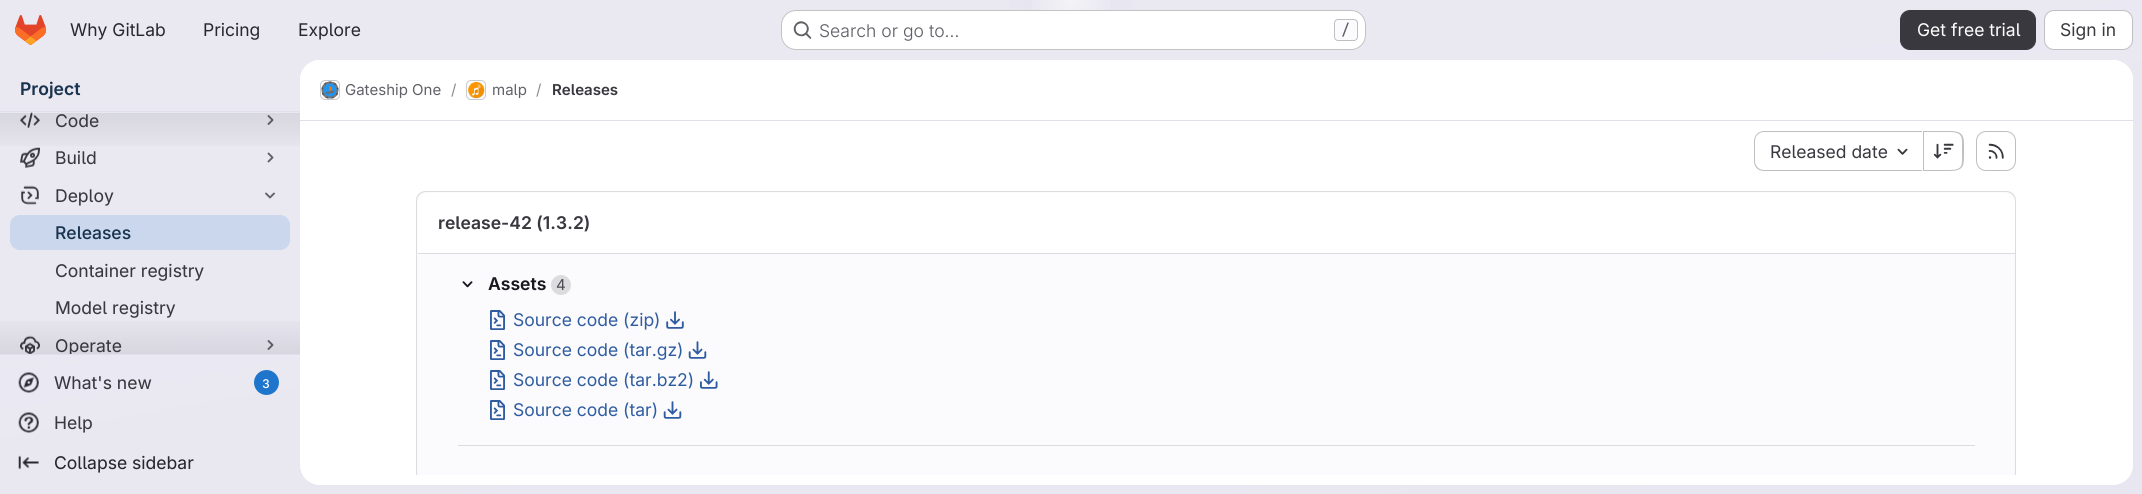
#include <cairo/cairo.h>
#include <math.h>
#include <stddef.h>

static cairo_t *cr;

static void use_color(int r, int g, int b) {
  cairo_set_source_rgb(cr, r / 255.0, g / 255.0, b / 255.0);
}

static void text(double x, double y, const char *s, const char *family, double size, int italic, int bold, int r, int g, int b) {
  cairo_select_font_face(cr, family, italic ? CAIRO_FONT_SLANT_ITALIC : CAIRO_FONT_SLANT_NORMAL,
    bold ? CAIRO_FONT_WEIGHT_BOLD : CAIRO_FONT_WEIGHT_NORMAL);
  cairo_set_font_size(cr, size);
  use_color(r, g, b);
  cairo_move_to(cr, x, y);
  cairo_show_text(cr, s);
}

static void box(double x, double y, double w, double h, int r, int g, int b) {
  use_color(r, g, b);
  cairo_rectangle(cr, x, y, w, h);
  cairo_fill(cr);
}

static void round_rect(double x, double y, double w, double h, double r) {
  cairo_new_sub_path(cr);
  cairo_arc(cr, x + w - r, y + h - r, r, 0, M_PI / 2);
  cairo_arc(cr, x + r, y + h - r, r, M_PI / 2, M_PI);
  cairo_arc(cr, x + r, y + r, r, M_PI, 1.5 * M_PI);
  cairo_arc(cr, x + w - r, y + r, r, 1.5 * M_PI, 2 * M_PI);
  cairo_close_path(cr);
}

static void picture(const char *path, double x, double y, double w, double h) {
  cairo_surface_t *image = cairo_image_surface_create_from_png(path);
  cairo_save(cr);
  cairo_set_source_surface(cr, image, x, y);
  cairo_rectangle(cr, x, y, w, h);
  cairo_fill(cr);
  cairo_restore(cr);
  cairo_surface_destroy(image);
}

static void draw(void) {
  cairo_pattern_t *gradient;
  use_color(255, 255, 255);
  cairo_paint(cr);
  gradient = cairo_pattern_create_linear(1146, 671, 997, -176);
  cairo_pattern_add_color_stop_rgba(gradient, 0, 0.91, 0.902, 0.941, 1);
  cairo_pattern_add_color_stop_rgba(gradient, 0.7, 0.918, 0.914, 0.949, 1);
  cairo_set_source(cr, gradient);
  cairo_pattern_destroy(gradient);
  cairo_rectangle(cr, 0, 0, 2142, 494);
  cairo_fill(cr);
  gradient = cairo_pattern_create_radial(0, 0, 0, 0, 0, 1);
  cairo_pattern_set_matrix(gradient, &(cairo_matrix_t){1.0 / 1071, 0, 0, 1.0 / 495, -1.0 * 1071 / 1071, -1.0 * 0 / 495});
  cairo_pattern_add_color_stop_rgba(gradient, 0, 0.894, 0.886, 0.929, 1);
  cairo_pattern_add_color_stop_rgba(gradient, 0.08, 0.894, 0.886, 0.929, 0);
  cairo_set_source(cr, gradient);
  cairo_pattern_destroy(gradient);
  cairo_rectangle(cr, 1009, 0, 124, 10);
  cairo_fill(cr);
  gradient = cairo_pattern_create_radial(0, 0, 0, 0, 0, 1);
  cairo_pattern_set_matrix(gradient, &(cairo_matrix_t){1.0 / 1071, 0, 0, 1.0 / 495, -1.0 * 1071 / 1071, -1.0 * 0 / 495});
  cairo_pattern_add_color_stop_rgba(gradient, 0, 0.894, 0.886, 0.925, 1);
  cairo_pattern_add_color_stop_rgba(gradient, 0.06, 0.894, 0.886, 0.925, 0);
  cairo_set_source(cr, gradient);
  cairo_pattern_destroy(gradient);
  cairo_rectangle(cr, 1054, 1, 1, 1);
  cairo_fill(cr);
  gradient = cairo_pattern_create_radial(1071, 0, 0, 1071, 0, 1180);
  cairo_pattern_add_color_stop_rgba(gradient, 0, 1, 1, 1, 0.6);
  cairo_pattern_add_color_stop_rgba(gradient, 0.04, 1, 1, 1, 0);
  cairo_set_source(cr, gradient);
  cairo_pattern_destroy(gradient);
  cairo_rectangle(cr, 1032, 0, 79, 10);
  cairo_fill(cr);
  picture("img_01.png", 15, 15, 31, 30);
  use_color(255, 255, 255);
  round_rect(781, 10, 585, 40, 15);
  cairo_fill(cr);
  round_rect(781.5, 10.5, 584, 39, 14.5);
  cairo_set_source_rgba(cr, 0.02, 0.02, 0.024, 0.24);
  cairo_set_line_width(cr, 1);
  cairo_stroke(cr);
  picture("img_02.png", 793, 21, 19, 18);
  use_color(251, 250, 253);
  round_rect(1334.5, 19.5, 23, 21, 3.5);
  cairo_fill_preserve(cr);
  use_color(191, 191, 195);
  cairo_stroke(cr);
  use_color(58, 56, 63);
  round_rect(1900.5, 10.5, 135, 39, 9.5);
  cairo_fill_preserve(cr);
  cairo_stroke(cr);
  use_color(255, 255, 255);
  round_rect(2044.5, 10.5, 88, 39, 9.5);
  cairo_fill_preserve(cr);
  use_color(191, 191, 195);
  cairo_stroke(cr);
  box(0, 111, 300, 1, 225, 223, 236);
  box(0, 354, 300, 1, 225, 223, 236);
  picture("img_03.png", 20, 112, 20, 16);
  cairo_new_path(cr);
  cairo_move_to(cr, 268.5, 116);
  cairo_line_to(cr, 272.5, 120);
  cairo_line_to(cr, 268.5, 124);
  use_color(98, 97, 104);
  cairo_set_line_width(cr, 1.9);
  cairo_set_line_cap(cr, CAIRO_LINE_CAP_ROUND);
  cairo_set_line_join(cr, CAIRO_LINE_JOIN_ROUND);
  cairo_stroke(cr);
  gradient = cairo_pattern_create_linear(150, 112, 150, 158);
  cairo_pattern_add_color_stop_rgba(gradient, 0, 0.02, 0.02, 0.024, 0.08);
  cairo_pattern_add_color_stop_rgba(gradient, 1, 0.02, 0.02, 0.024, 0);
  cairo_set_source(cr, gradient);
  cairo_pattern_destroy(gradient);
  cairo_rectangle(cr, 0, 113, 300, 33);
  cairo_fill(cr);
  picture("img_04.png", 20, 147, 20, 21);
  cairo_new_path(cr);
  cairo_move_to(cr, 268.5, 153.5);
  cairo_line_to(cr, 272.5, 157.5);
  cairo_line_to(cr, 268.5, 161.5);
  use_color(98, 97, 104);
  cairo_stroke(cr);
  picture("img_05.png", 21, 185, 18, 20);
  cairo_new_path(cr);
  cairo_move_to(cr, 274, 193.5);
  cairo_line_to(cr, 270, 197.5);
  cairo_line_to(cr, 266, 193.5);
  cairo_stroke(cr);
  use_color(202, 215, 236);
  round_rect(10, 215, 280, 35, 10);
  cairo_fill(cr);
  picture("img_06.png", 20, 335, 20, 19);
  cairo_new_path(cr);
  cairo_move_to(cr, 268.5, 341);
  cairo_line_to(cr, 272.5, 345);
  cairo_line_to(cr, 268.5, 349);
  use_color(98, 97, 104);
  cairo_stroke(cr);
  gradient = cairo_pattern_create_linear(150, 309, 150, 354);
  cairo_pattern_add_color_stop_rgba(gradient, 0, 0.02, 0.02, 0.024, 0);
  cairo_pattern_add_color_stop_rgba(gradient, 1, 0.02, 0.02, 0.024, 0.08);
  cairo_set_source(cr, gradient);
  cairo_pattern_destroy(gradient);
  cairo_rectangle(cr, 0, 321, 300, 33);
  cairo_fill(cr);
  picture("img_07.png", 18, 372, 21, 21);
  use_color(31, 117, 203);
  cairo_arc(cr, 266.5, 382.5, 12.5, 0, 2 * M_PI);
  cairo_fill(cr);
  picture("img_08.png", 18, 412, 21, 21);
  picture("img_09.png", 18, 455, 21, 15);
  use_color(255, 255, 255);
  round_rect(300, 60, 1833, 425, 20);
  cairo_fill(cr);
  cairo_new_path(cr);
  cairo_move_to(cr, 320, 60);
  cairo_line_to(cr, 2113, 60);
  cairo_curve_to(cr, 2124, 60, 2133, 69, 2133, 80);
  cairo_line_to(cr, 2133, 121);
  cairo_line_to(cr, 300, 121);
  cairo_line_to(cr, 300, 80);
  cairo_curve_to(cr, 300, 69, 309, 60, 320, 60);
  cairo_close_path(cr);
  cairo_fill(cr);
  box(300, 120, 1833, 1, 225, 223, 236);
  round_rect(320.5, 80.5, 19, 19, 4.5);
  use_color(220, 220, 222);
  cairo_set_line_width(cr, 1);
  cairo_set_line_cap(cr, CAIRO_LINE_CAP_BUTT);
  cairo_set_line_join(cr, CAIRO_LINE_JOIN_MITER);
  cairo_stroke(cr);
  picture("img_10.png", 321, 81, 18, 18);
  round_rect(320.5, 80.5, 19, 19, 4.5);
  cairo_set_source_rgba(cr, 0.02, 0.02, 0.024, 0.08);
  cairo_stroke(cr);
  round_rect(466.5, 80.5, 19, 19, 4.5);
  use_color(220, 220, 222);
  cairo_stroke(cr);
  picture("img_11.png", 468, 82, 17, 17);
  round_rect(466.5, 80.5, 19, 19, 4.5);
  cairo_set_source_rgba(cr, 0.02, 0.02, 0.024, 0.08);
  cairo_stroke(cr);
  use_color(191, 191, 195);
  cairo_set_fill_rule(cr, CAIRO_FILL_RULE_EVEN_ODD);
  cairo_new_path(cr);
  cairo_move_to(cr, 1764, 131);
  cairo_line_to(cr, 1922, 131);
  cairo_line_to(cr, 1922, 171);
  cairo_line_to(cr, 1764, 171);
  cairo_curve_to(cr, 1758, 171, 1754, 167, 1754, 161);
  cairo_line_to(cr, 1754, 141);
  cairo_curve_to(cr, 1754, 136, 1758, 131, 1764, 131);
  cairo_close_path(cr);
  cairo_move_to(cr, 1764, 132);
  cairo_line_to(cr, 1922, 132);
  cairo_line_to(cr, 1922, 170);
  cairo_line_to(cr, 1764, 170);
  cairo_curve_to(cr, 1759, 170, 1755, 166, 1755, 161);
  cairo_line_to(cr, 1755, 141);
  cairo_curve_to(cr, 1755, 136, 1759, 132, 1764, 132);
  cairo_close_path(cr);
  cairo_fill(cr);
  picture("img_12.png", 1897, 148, 11, 7);
  cairo_new_path(cr);
  cairo_move_to(cr, 1924, 131);
  cairo_line_to(cr, 1949, 131);
  cairo_curve_to(cr, 1965, 131, 1964, 137, 1964, 151);
  cairo_curve_to(cr, 1964, 165, 1965, 171, 1949, 171);
  cairo_line_to(cr, 1924, 171);
  cairo_close_path(cr);
  cairo_move_to(cr, 1924, 132);
  cairo_line_to(cr, 1949, 132);
  cairo_curve_to(cr, 1964, 132, 1962, 138, 1962, 151);
  cairo_curve_to(cr, 1962, 165, 1964, 170, 1949, 170);
  cairo_line_to(cr, 1924, 170);
  cairo_close_path(cr);
  cairo_fill(cr);
  box(1923, 131, 1, 40, 191, 191, 195);
  picture("img_13.png", 1933, 143, 21, 16);
  round_rect(1976.5, 131.5, 39, 39, 9.5);
  cairo_stroke(cr);
  picture("img_14.png", 1988, 143, 16, 16);
  use_color(251, 250, 253);
  cairo_new_path(cr);
  cairo_move_to(cr, 426, 191);
  cairo_line_to(cr, 2006, 191);
  cairo_curve_to(cr, 2011.5, 191, 2016, 195.5, 2016, 201);
  cairo_line_to(cr, 2016, 475);
  cairo_line_to(cr, 416, 475);
  cairo_line_to(cr, 416, 201);
  cairo_curve_to(cr, 416, 195.5, 420.5, 191, 426, 191);
  cairo_close_path(cr);
  cairo_fill(cr);
  cairo_save(cr);
  cairo_set_fill_rule(cr, CAIRO_FILL_RULE_WINDING);
  cairo_rectangle(cr, 300, 121, 1833, 354);
  cairo_clip(cr);
  use_color(220, 220, 222);
  cairo_new_path(cr);
  cairo_move_to(cr, 426, 191);
  cairo_curve_to(cr, 420, 191, 416, 195, 416, 201);
  cairo_line_to(cr, 416, 485);
  cairo_line_to(cr, 417, 485);
  cairo_line_to(cr, 417, 201);
  cairo_curve_to(cr, 417, 196, 421, 192, 426, 192);
  cairo_line_to(cr, 2006, 192);
  cairo_curve_to(cr, 2011, 192, 2015, 196, 2015, 201);
  cairo_line_to(cr, 2015, 485);
  cairo_line_to(cr, 2016, 485);
  cairo_line_to(cr, 2016, 201);
  cairo_curve_to(cr, 2016, 195, 2012, 191, 2006, 191);
  cairo_close_path(cr);
  cairo_fill(cr);
  cairo_restore(cr);
  use_color(255, 255, 255);
  cairo_new_path(cr);
  cairo_move_to(cr, 428, 193);
  cairo_line_to(cr, 2005, 193);
  cairo_curve_to(cr, 2010.5, 193, 2015, 197.5, 2015, 203);
  cairo_line_to(cr, 2015, 254);
  cairo_line_to(cr, 418, 254);
  cairo_line_to(cr, 418, 203);
  cairo_curve_to(cr, 418, 197.5, 422.5, 193, 428, 193);
  cairo_close_path(cr);
  cairo_fill(cr);
  box(418, 253, 1597, 1, 220, 220, 222);
  box(458, 445, 1517, 1, 220, 220, 222);
  picture("img_15.png", 462, 281, 11, 7);
  cairo_arc(cr, 561, 285, 10, 0, 2 * M_PI);
  cairo_fill(cr);
  picture("img_16.png", 490, 310, 15, 20);
  picture("img_17.png", 666, 311, 18, 18);
  picture("img_16.png", 490, 340, 15, 20);
  picture("img_18.png", 688, 341, 19, 18);
  picture("img_16.png", 490, 370, 15, 20);
  picture("img_19.png", 700, 371, 18, 18);
  picture("img_16.png", 490, 400, 15, 20);
  picture("img_18.png", 663, 401, 19, 18);
  text(70, 36, "Why GitLab", "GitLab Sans", 17.5, 0, 0, 40, 39, 45);
  text(203, 36, "Pricing", "GitLab Sans", 17.5, 0, 0, 40, 39, 45);
  text(298, 36, "Explore", "GitLab Sans", 17.5, 0, 0, 40, 39, 45);
  text(819, 37, "Search or go to…", "GitLab Sans Light", 17.5, 0, 0, 98, 97, 104);
  text(1341, 35, "/", "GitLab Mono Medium", 15, 0, 0, 98, 97, 104);
  text(1917, 36, "Get free trial", "GitLab Sans", 17.5, 0, 0, 255, 255, 255);
  text(2060, 36, "Sign in", "GitLab Sans", 17.5, 0, 0, 58, 56, 63);
  text(20, 95, "Project", "GitLab Sans SemiBold", 17.5, 0, 0, 24, 51, 78);
  text(55, 127, "Code", "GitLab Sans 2", 17.5, 0, 0, 58, 56, 63);
  text(55, 164, "Build", "GitLab Sans 2", 17.5, 0, 0, 58, 56, 63);
  text(55, 202, "Deploy", "GitLab Sans 2", 17.5, 0, 0, 58, 56, 63);
  text(55, 239, "Releases", "GitLab Sans Medium", 17.5, 0, 0, 24, 51, 78);
  text(55, 277, "Container registry", "GitLab Sans 2", 17.5, 0, 0, 58, 56, 63);
  text(55, 314, "Model registry", "GitLab Sans 2", 17.5, 0, 0, 58, 56, 63);
  cairo_save(cr);
  cairo_set_fill_rule(cr, CAIRO_FILL_RULE_WINDING);
  cairo_rectangle(cr, 55, 333, 195, 21);
  cairo_clip(cr);
  text(55, 352, "Operate", "GitLab Sans 2", 17.5, 0, 0, 58, 56, 63);
  cairo_restore(cr);
  text(54, 389, "What's new", "GitLab Sans 2", 17.5, 0, 0, 58, 56, 63);
  text(262, 388, "3", "GitLab Sans Medium", 12, 0, 0, 255, 255, 255);
  text(54, 429, "Help", "GitLab Sans 2", 17.5, 0, 0, 58, 56, 63);
  text(54, 469, "Collapse sidebar", "GitLab Sans 2", 17.5, 0, 0, 40, 39, 45);
  text(345, 95, "Gateship One", "GitLab Sans", 15, 0, 0, 98, 97, 104);
  text(451, 95, "/", "GitLab Sans", 15, 0, 0, 137, 136, 141);
  text(492, 95, "malp", "GitLab Sans", 15, 0, 0, 98, 97, 104);
  text(536, 95, "/", "GitLab Sans", 15, 0, 0, 137, 136, 141);
  text(552, 95, "Releases", "GitLab Sans SemiBold", 15, 0, 0, 58, 56, 63);
  text(1770, 158, "Released date", "GitLab Sans", 17.5, 0, 0, 58, 56, 63);
  text(438, 229, "release-42 (1.3.2)", "GitLab Sans SemiBold", 17.5, 0, 0, 58, 56, 63);
  text(488, 290, "Assets", "GitLab Sans SemiBold", 17.5, 0, 0, 24, 23, 29);
  text(556, 290, "4", "GitLab Sans", 15, 0, 0, 76, 75, 81);
  text(513, 326, "Source code (zip)", "GitLab Sans", 17.5, 0, 0, 47, 92, 160);
  text(513, 356, "Source code (tar.gz)", "GitLab Sans", 17.5, 0, 0, 47, 92, 160);
  text(513, 386, "Source code (tar.bz2)", "GitLab Sans", 17.5, 0, 0, 47, 92, 160);
  text(513, 416, "Source code (tar)", "GitLab Sans", 17.5, 0, 0, 47, 92, 160);
}

int main(void) {
  cairo_surface_t *surface = cairo_image_surface_create(CAIRO_FORMAT_RGB24, 2142, 494);
  cr = cairo_create(surface);
  cairo_font_options_t *options = cairo_font_options_create();
  cairo_font_options_set_hint_metrics(options, CAIRO_HINT_METRICS_OFF);
  cairo_font_options_set_hint_style(options, CAIRO_HINT_STYLE_NONE);
  cairo_set_font_options(cr, options);
  cairo_set_miter_limit(cr, 4);
  draw();
  cairo_surface_write_to_png(surface, "out.png");
  cairo_font_options_destroy(options);
  cairo_destroy(cr);
  cairo_surface_destroy(surface);
  return 0;
}
